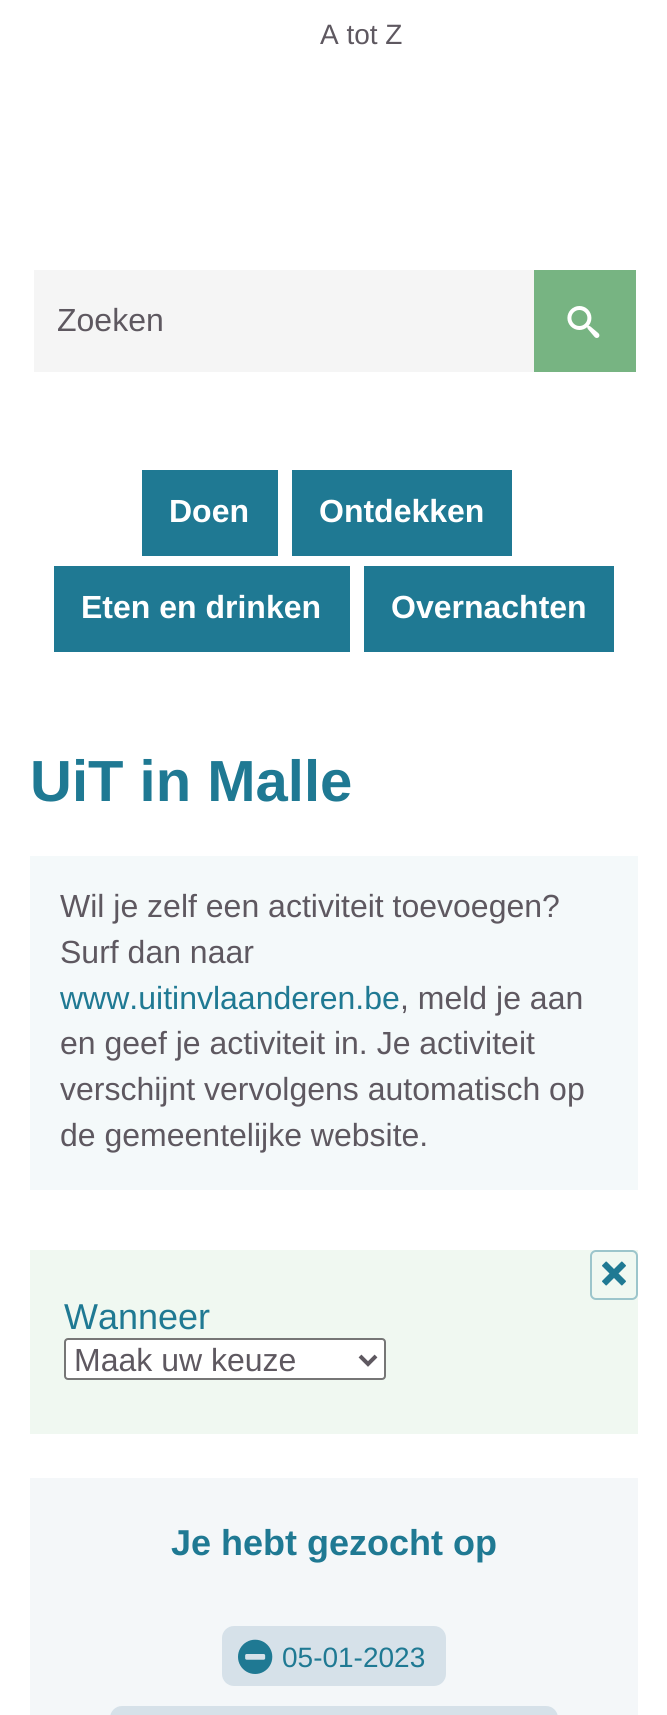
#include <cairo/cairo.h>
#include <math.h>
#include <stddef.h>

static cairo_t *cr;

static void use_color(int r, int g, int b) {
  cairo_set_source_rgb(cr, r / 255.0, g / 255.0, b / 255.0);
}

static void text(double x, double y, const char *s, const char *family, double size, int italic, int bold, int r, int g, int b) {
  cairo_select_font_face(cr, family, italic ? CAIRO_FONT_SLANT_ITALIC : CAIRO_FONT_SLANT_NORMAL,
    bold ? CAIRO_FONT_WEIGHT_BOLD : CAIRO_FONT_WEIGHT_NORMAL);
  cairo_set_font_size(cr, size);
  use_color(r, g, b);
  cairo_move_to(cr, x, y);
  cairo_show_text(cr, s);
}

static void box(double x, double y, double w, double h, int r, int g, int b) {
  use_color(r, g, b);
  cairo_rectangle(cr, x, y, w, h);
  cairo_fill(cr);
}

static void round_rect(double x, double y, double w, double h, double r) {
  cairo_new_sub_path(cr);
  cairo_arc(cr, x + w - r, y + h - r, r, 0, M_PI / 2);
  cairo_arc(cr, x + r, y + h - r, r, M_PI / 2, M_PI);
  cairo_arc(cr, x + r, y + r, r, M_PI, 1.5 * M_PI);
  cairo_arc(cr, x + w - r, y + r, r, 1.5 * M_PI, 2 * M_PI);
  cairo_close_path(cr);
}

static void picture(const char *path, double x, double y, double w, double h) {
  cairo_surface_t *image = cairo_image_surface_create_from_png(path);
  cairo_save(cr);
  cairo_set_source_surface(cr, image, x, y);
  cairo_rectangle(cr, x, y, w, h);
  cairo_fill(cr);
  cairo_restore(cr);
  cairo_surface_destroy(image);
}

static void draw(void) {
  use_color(255, 255, 255);
  cairo_paint(cr);
  box(142, 470, 136, 86, 31, 121, 147);
  box(292, 470, 220, 86, 31, 121, 147);
  box(54, 566, 296, 86, 31, 121, 147);
  box(364, 566, 250, 86, 31, 121, 147);
  box(34, 270, 500, 102, 245, 245, 245);
  box(534, 270, 102, 102, 119, 180, 130);
  picture("img_01.png", 567, 306, 33, 32);
  box(30, 856, 608, 334, 244, 249, 250);
  use_color(240, 248, 241);
  cairo_rectangle(cr, 31, 1251, 606, 182);
  cairo_fill_preserve(cr);
  cairo_stroke(cr);
  use_color(255, 255, 255);
  round_rect(65, 1339, 320, 40, 3);
  cairo_fill_preserve(cr);
  use_color(118, 118, 118);
  cairo_stroke(cr);
  cairo_new_path(cr);
  cairo_move_to(cr, 360, 1356);
  cairo_line_to(cr, 368, 1364);
  cairo_line_to(cr, 376, 1356);
  use_color(94, 88, 96);
  cairo_set_line_width(cr, 4);
  cairo_stroke(cr);
  box(30, 1478, 608, 237, 244, 247, 249);
  round_rect(591, 1251, 46, 48, 5);
  use_color(156, 197, 203);
  cairo_set_line_width(cr, 2);
  cairo_stroke(cr);
  picture("img_02.png", 602, 1261, 24, 25);
  use_color(214, 225, 233);
  round_rect(222, 1626, 224, 60, 12);
  cairo_fill(cr);
  picture("img_03.png", 238, 1639, 35, 35);
  round_rect(110, 1706, 448, 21, 12);
  cairo_fill(cr);
  text(320, 44, "A tot Z", "Liberation Sans", 28, 0, 0, 94, 88, 96);
  text(169, 522, "Doen", "Liberation Sans", 32, 0, 1, 255, 255, 255);
  text(319, 522, "Ontdekken", "Liberation Sans", 32, 0, 1, 255, 255, 255);
  text(81, 618, "Eten en drinken", "Liberation Sans", 32, 0, 1, 255, 255, 255);
  text(391, 618, "Overnachten", "Liberation Sans", 32, 0, 1, 255, 255, 255);
  text(57, 331, "Zoeken", "Liberation Sans", 32, 0, 0, 94, 88, 96);
  text(30, 801, "UiT in Malle", "Liberation Sans", 58, 0, 1, 31, 121, 147);
  text(60, 917, "Wil je zelf een activiteit toevoegen?", "Liberation Sans", 32, 0, 0, 94, 88, 96);
  text(60, 963, "Surf dan naar", "Liberation Sans", 32, 0, 0, 94, 88, 96);
  text(60, 1009, "www.uitinvlaanderen.be", "Liberation Sans", 32, 0, 0, 31, 121, 147);
  text(400, 1009, ", meld je aan", "Liberation Sans", 32, 0, 0, 94, 88, 96);
  text(60, 1054, "en geef je activiteit in. Je activiteit", "Liberation Sans", 32, 0, 0, 94, 88, 96);
  text(60, 1100, "verschijnt vervolgens automatisch op", "Liberation Sans", 32, 0, 0, 94, 88, 96);
  text(60, 1146, "de gemeentelijke website.", "Liberation Sans", 32, 0, 0, 94, 88, 96);
  text(64, 1329, "Wanneer", "Liberation Sans", 36, 0, 0, 31, 121, 147);
  text(74, 1371, "Maak uw keuze", "Liberation Sans", 32, 0, 0, 94, 88, 96);
  text(171, 1555, "Je hebt gezocht op", "Liberation Sans", 36, 0, 1, 31, 121, 147);
  text(282, 1667, "05-01-2023", "Liberation Sans", 28, 0, 0, 31, 121, 147);
}

int main(void) {
  cairo_surface_t *surface = cairo_image_surface_create(CAIRO_FORMAT_RGB24, 667, 1715);
  cr = cairo_create(surface);
  cairo_font_options_t *options = cairo_font_options_create();
  cairo_font_options_set_hint_metrics(options, CAIRO_HINT_METRICS_OFF);
  cairo_font_options_set_hint_style(options, CAIRO_HINT_STYLE_NONE);
  cairo_set_font_options(cr, options);
  cairo_set_miter_limit(cr, 4);
  draw();
  cairo_surface_write_to_png(surface, "out.png");
  cairo_font_options_destroy(options);
  cairo_destroy(cr);
  cairo_surface_destroy(surface);
  return 0;
}
